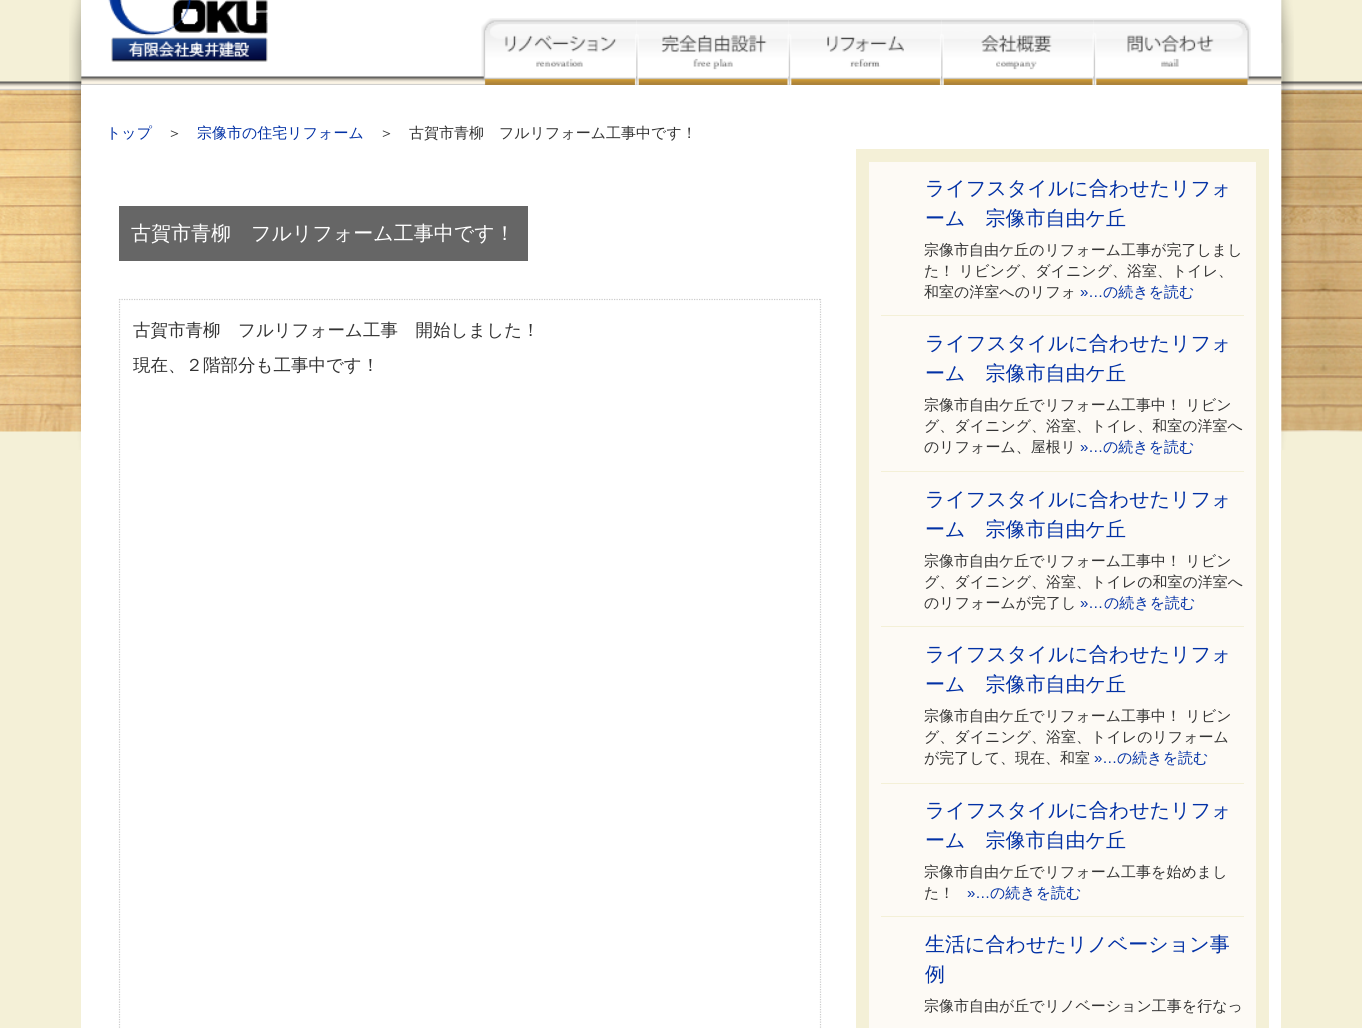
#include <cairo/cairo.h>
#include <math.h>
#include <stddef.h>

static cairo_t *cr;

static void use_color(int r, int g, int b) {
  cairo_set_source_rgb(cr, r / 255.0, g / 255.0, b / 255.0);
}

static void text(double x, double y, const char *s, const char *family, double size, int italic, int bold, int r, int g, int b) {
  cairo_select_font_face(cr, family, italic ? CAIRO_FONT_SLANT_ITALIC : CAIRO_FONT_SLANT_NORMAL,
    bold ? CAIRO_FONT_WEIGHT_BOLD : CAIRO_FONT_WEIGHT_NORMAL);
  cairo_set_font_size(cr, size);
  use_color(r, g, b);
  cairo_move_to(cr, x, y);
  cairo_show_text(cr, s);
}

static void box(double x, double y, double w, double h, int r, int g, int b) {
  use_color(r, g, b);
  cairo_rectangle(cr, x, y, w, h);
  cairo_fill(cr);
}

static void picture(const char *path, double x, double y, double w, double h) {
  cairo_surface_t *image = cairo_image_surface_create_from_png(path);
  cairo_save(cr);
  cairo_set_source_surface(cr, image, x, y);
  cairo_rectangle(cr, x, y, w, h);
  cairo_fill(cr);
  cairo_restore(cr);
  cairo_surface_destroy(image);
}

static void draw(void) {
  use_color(244, 240, 215);
  cairo_paint(cr);
  picture("img_01.png", 0, 81, 1362, 351);
  picture("img_02.png", 69, 0, 1225, 451);
  box(81, 0, 1, 60, 255, 255, 255);
  picture("img_03.png", 108, 0, 160, 62);
  picture("img_04.png", 481, 18, 156, 67);
  picture("img_05.png", 636, 18, 153, 67);
  picture("img_06.png", 788, 18, 154, 67);
  picture("img_07.png", 941, 18, 153, 67);
  picture("img_08.png", 1093, 18, 158, 67);
  box(81, 85, 1200, 943, 255, 255, 255);
  box(119, 206, 409, 55, 102, 102, 102);
  cairo_new_path(cr);
  cairo_move_to(cr, 119, 299.5);
  cairo_line_to(cr, 821, 299.5);
  use_color(204, 204, 204);
  cairo_set_line_width(cr, 1.2);
  cairo_set_dash(cr, (double[]){1.25, 1.25}, 2, 0);
  cairo_stroke(cr);
  cairo_new_path(cr);
  cairo_move_to(cr, 820.5, 299);
  cairo_line_to(cr, 820.5, 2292.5);
  cairo_stroke(cr);
  cairo_new_path(cr);
  cairo_move_to(cr, 119.5, 299);
  cairo_line_to(cr, 119.5, 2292.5);
  cairo_stroke(cr);
  use_color(253, 250, 245);
  cairo_rectangle(cr, 862.5, 155.5, 400, 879);
  cairo_fill_preserve(cr);
  use_color(244, 240, 215);
  cairo_set_line_width(cr, 13);
  cairo_set_dash(cr, NULL, 0, 0);
  cairo_stroke(cr);
  box(881, 315, 363, 1, 244, 240, 215);
  box(881, 471, 363, 1, 244, 240, 215);
  box(881, 626, 363, 1, 244, 240, 215);
  box(881, 783, 363, 1, 244, 240, 215);
  box(881, 916, 363, 1, 244, 240, 215);
  text(106, 138, "トップ", "WenQuanYi Zen Hei Medium", 15, 0, 0, 2, 49, 165);
  text(167, 138, "＞", "WenQuanYi Zen Hei Medium", 15, 0, 0, 51, 51, 51);
  text(197, 138, "宗像市の住宅リフォーム", "WenQuanYi Zen Hei Medium", 15, 0, 0, 2, 49, 165);
  text(379, 138, "＞　古賀市青柳　フルリフォーム工事中です！", "WenQuanYi Zen Hei Medium", 15, 0, 0, 51, 51, 51);
  text(131, 240, "古賀市青柳　フルリフォーム工事中です！", "WenQuanYi Zen Hei Medium", 20, 0, 0, 255, 255, 255);
  text(133, 336, "古賀市青柳　フルリフォーム工事　開始しました！", "WenQuanYi Zen Hei Medium", 17.5, 0, 0, 51, 51, 51);
  text(133, 371, "現在、２階部分も工事中です！", "WenQuanYi Zen Hei Medium", 17.5, 0, 0, 51, 51, 51);
  text(925, 195, "ライフスタイルに合わせたリフォ", "WenQuanYi Zen Hei Medium", 20, 0, 0, 2, 49, 165);
  text(925, 225, "ーム　宗像市自由ケ丘", "WenQuanYi Zen Hei Medium", 20, 0, 0, 2, 49, 165);
  text(924, 255, "宗像市自由ケ丘のリフォーム工事が完了しまし", "WenQuanYi Zen Hei Medium", 15, 0, 0, 51, 51, 51);
  text(924, 276, "た！ リビング、ダイニング、浴室、トイレ、", "WenQuanYi Zen Hei Medium", 15, 0, 0, 51, 51, 51);
  text(924, 297, "和室の洋室へのリフォ", "WenQuanYi Zen Hei Medium", 15, 0, 0, 51, 51, 51);
  text(1080, 297, "»…", "Liberation Sans", 15, 0, 0, 2, 49, 165);
  text(1103, 297, "の続きを読む", "WenQuanYi Zen Hei Medium", 15, 0, 0, 2, 49, 165);
  text(925, 350, "ライフスタイルに合わせたリフォ", "WenQuanYi Zen Hei Medium", 20, 0, 0, 2, 49, 165);
  text(925, 380, "ーム　宗像市自由ケ丘", "WenQuanYi Zen Hei Medium", 20, 0, 0, 2, 49, 165);
  text(924, 410, "宗像市自由ケ丘でリフォーム工事中！ リビン", "WenQuanYi Zen Hei Medium", 15, 0, 0, 51, 51, 51);
  text(924, 431, "グ、ダイニング、浴室、トイレ、和室の洋室へ", "WenQuanYi Zen Hei Medium", 15, 0, 0, 51, 51, 51);
  text(924, 452, "のリフォーム、屋根リ", "WenQuanYi Zen Hei Medium", 15, 0, 0, 51, 51, 51);
  text(1080, 452, "»…", "Liberation Sans", 15, 0, 0, 2, 49, 165);
  text(1103, 452, "の続きを読む", "WenQuanYi Zen Hei Medium", 15, 0, 0, 2, 49, 165);
  text(925, 506, "ライフスタイルに合わせたリフォ", "WenQuanYi Zen Hei Medium", 20, 0, 0, 2, 49, 165);
  text(925, 536, "ーム　宗像市自由ケ丘", "WenQuanYi Zen Hei Medium", 20, 0, 0, 2, 49, 165);
  text(924, 566, "宗像市自由ケ丘でリフォーム工事中！ リビン", "WenQuanYi Zen Hei Medium", 15, 0, 0, 51, 51, 51);
  text(924, 587, "グ、ダイニング、浴室、トイレの和室の洋室へ", "WenQuanYi Zen Hei Medium", 15, 0, 0, 51, 51, 51);
  text(924, 608, "のリフォームが完了し", "WenQuanYi Zen Hei Medium", 15, 0, 0, 51, 51, 51);
  text(1080, 608, "»…", "Liberation Sans", 15, 0, 0, 2, 49, 165);
  text(1104, 608, "の続きを読む", "WenQuanYi Zen Hei Medium", 15, 0, 0, 2, 49, 165);
  text(925, 661, "ライフスタイルに合わせたリフォ", "WenQuanYi Zen Hei Medium", 20, 0, 0, 2, 49, 165);
  text(925, 691, "ーム　宗像市自由ケ丘", "WenQuanYi Zen Hei Medium", 20, 0, 0, 2, 49, 165);
  text(924, 721, "宗像市自由ケ丘でリフォーム工事中！ リビン", "WenQuanYi Zen Hei Medium", 15, 0, 0, 51, 51, 51);
  text(924, 742, "グ、ダイニング、浴室、トイレのリフォーム", "WenQuanYi Zen Hei Medium", 15, 0, 0, 51, 51, 51);
  text(924, 763, "が完了して、現在、和室", "WenQuanYi Zen Hei Medium", 15, 0, 0, 51, 51, 51);
  text(1094, 763, "»…", "Liberation Sans", 15, 0, 0, 2, 49, 165);
  text(1117, 763, "の続きを読む", "WenQuanYi Zen Hei Medium", 15, 0, 0, 2, 49, 165);
  text(925, 817, "ライフスタイルに合わせたリフォ", "WenQuanYi Zen Hei Medium", 20, 0, 0, 2, 49, 165);
  text(925, 847, "ーム　宗像市自由ケ丘", "WenQuanYi Zen Hei Medium", 20, 0, 0, 2, 49, 165);
  text(924, 877, "宗像市自由ケ丘でリフォーム工事を始めまし", "WenQuanYi Zen Hei Medium", 15, 0, 0, 51, 51, 51);
  text(924, 898, "た！", "WenQuanYi Zen Hei Medium", 15, 0, 0, 51, 51, 51);
  text(967, 898, "»…", "Liberation Sans", 15, 0, 0, 2, 49, 165);
  text(990, 898, "の続きを読む", "WenQuanYi Zen Hei Medium", 15, 0, 0, 2, 49, 165);
  text(925, 951, "生活に合わせたリノベーション事", "WenQuanYi Zen Hei Medium", 20, 0, 0, 2, 49, 165);
  text(925, 981, "例", "WenQuanYi Zen Hei Medium", 20, 0, 0, 2, 49, 165);
  text(924, 1011, "宗像市自由が丘でリノベーション工事を行なっ", "WenQuanYi Zen Hei Medium", 15, 0, 0, 51, 51, 51);
}

int main(void) {
  cairo_surface_t *surface = cairo_image_surface_create(CAIRO_FORMAT_RGB24, 1362, 1028);
  cr = cairo_create(surface);
  cairo_font_options_t *options = cairo_font_options_create();
  cairo_font_options_set_hint_metrics(options, CAIRO_HINT_METRICS_OFF);
  cairo_font_options_set_hint_style(options, CAIRO_HINT_STYLE_NONE);
  cairo_set_font_options(cr, options);
  cairo_set_miter_limit(cr, 4);
  draw();
  cairo_surface_write_to_png(surface, "out.png");
  cairo_font_options_destroy(options);
  cairo_destroy(cr);
  cairo_surface_destroy(surface);
  return 0;
}
